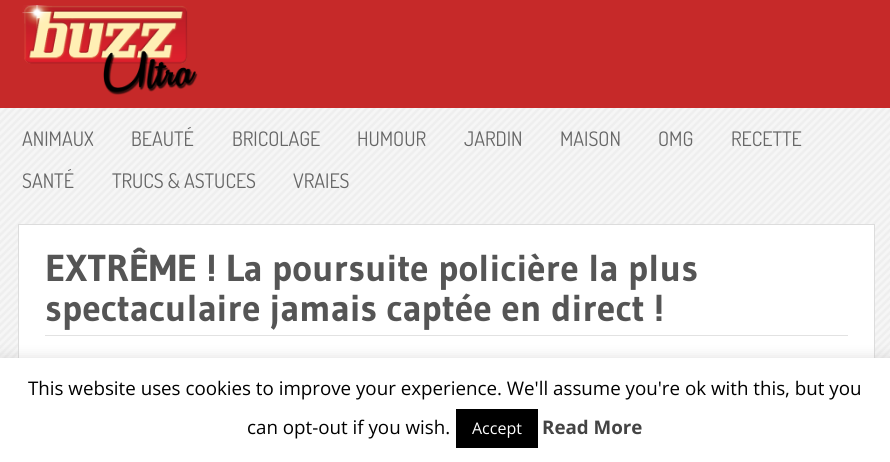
#include <cairo/cairo.h>
#include <math.h>
#include <stddef.h>

static cairo_t *cr;

static void use_color(int r, int g, int b) {
  cairo_set_source_rgb(cr, r / 255.0, g / 255.0, b / 255.0);
}

static void text(double x, double y, const char *s, const char *family, double size, int italic, int bold, int r, int g, int b) {
  cairo_select_font_face(cr, family, italic ? CAIRO_FONT_SLANT_ITALIC : CAIRO_FONT_SLANT_NORMAL,
    bold ? CAIRO_FONT_WEIGHT_BOLD : CAIRO_FONT_WEIGHT_NORMAL);
  cairo_set_font_size(cr, size);
  use_color(r, g, b);
  cairo_move_to(cr, x, y);
  cairo_show_text(cr, s);
}

static void box(double x, double y, double w, double h, int r, int g, int b) {
  use_color(r, g, b);
  cairo_rectangle(cr, x, y, w, h);
  cairo_fill(cr);
}

static void round_rect(double x, double y, double w, double h, double r) {
  cairo_new_sub_path(cr);
  cairo_arc(cr, x + w - r, y + h - r, r, 0, M_PI / 2);
  cairo_arc(cr, x + r, y + h - r, r, M_PI / 2, M_PI);
  cairo_arc(cr, x + r, y + r, r, M_PI, 1.5 * M_PI);
  cairo_arc(cr, x + w - r, y + r, r, 1.5 * M_PI, 2 * M_PI);
  cairo_close_path(cr);
}

static void shadow(double x, double y, double w, double h, double r, double blur, double alpha) {
  cairo_push_group_with_content(cr, CAIRO_CONTENT_ALPHA);
  cairo_set_operator(cr, CAIRO_OPERATOR_SOURCE);
  for (int i = 15; i >= -15 && fmin(w, h) + blur * i / 3 > 0; i -= 2) {
    double e = blur * i / 6;
    cairo_set_source_rgba(cr, 0, 0, 0, alpha * erfc((i - 1) / 8.5) / 2);
    round_rect(x - e, y - e, w + 2 * e, h + 2 * e, fmax(0, fmin(r + e + blur * .6, fmin(w, h) / 2 + e)));
    cairo_fill(cr);
  }
  cairo_pattern_t *soft = cairo_pop_group(cr);
  cairo_mask(cr, soft);
  cairo_pattern_destroy(soft);
}

static void picture(const char *path, double x, double y, double w, double h) {
  cairo_surface_t *image = cairo_image_surface_create_from_png(path);
  cairo_save(cr);
  cairo_set_source_surface(cr, image, x, y);
  cairo_rectangle(cr, x, y, w, h);
  cairo_fill(cr);
  cairo_restore(cr);
  cairo_surface_destroy(image);
}

static void draw(void) {
  use_color(246, 246, 246);
  cairo_paint(cr);
  picture("img_01.png", 0, 108, 890, 250);
  box(0, 0, 890, 108, 198, 41, 41);
  picture("img_02.png", 22, 5, 176, 90);
  box(19, 225, 855, 133, 255, 255, 255);
  cairo_rectangle(cr, 18.5, 224.5, 856, 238);
  use_color(220, 220, 220);
  cairo_set_line_width(cr, 1);
  cairo_stroke(cr);
  box(45, 335, 803, 1, 226, 226, 226);
  use_color(172, 171, 171);
  shadow(0, 356, 890, 105, 0, 6, 0.3);
  box(0, 358, 890, 104, 255, 255, 255);
  box(456, 409, 82, 39, 0, 0, 0);
  text(22, 146, "ANIMAUX", "Dosis", 20, 0, 0, 102, 102, 102);
  text(131, 146, "BEAUTÉ", "Dosis", 20, 0, 0, 102, 102, 102);
  text(232, 146, "BRICOLAGE", "Dosis", 20, 0, 0, 102, 102, 102);
  text(357, 146, "HUMOUR", "Dosis", 20, 0, 0, 102, 102, 102);
  text(464, 146, "JARDIN", "Dosis", 20, 0, 0, 102, 102, 102);
  text(560, 146, "MAISON", "Dosis", 20, 0, 0, 102, 102, 102);
  text(658, 146, "OMG", "Dosis", 20, 0, 0, 102, 102, 102);
  text(731, 146, "RECETTE", "Dosis", 20, 0, 0, 102, 102, 102);
  text(22, 188, "SANTÉ", "Dosis", 20, 0, 0, 102, 102, 102);
  text(112, 188, "TRUCS & ASTUCES", "Dosis", 20, 0, 0, 102, 102, 102);
  text(293, 188, "VRAIES", "Dosis", 20, 0, 0, 102, 102, 102);
  text(45, 281, "EXTRÊME ! La poursuite policière la plus", "Gudea", 37.5, 0, 1, 85, 85, 85);
  text(45, 321, "spectaculaire jamais captée en direct !", "Gudea", 37.5, 0, 1, 85, 85, 85);
  text(28, 395, "This website uses cookies to improve your experience. We'll assume you're ok with this, but you", "Open Sans", 18.75, 0, 0, 0, 0, 0);
  text(247, 434, "can opt-out if you wish.", "Open Sans", 18.75, 0, 0, 0, 0, 0);
  text(472, 434, "Accept", "Open Sans", 16, 0, 0, 255, 255, 255);
  text(542, 434, "Read More", "Open Sans", 18.75, 0, 1, 68, 68, 68);
}

int main(void) {
  cairo_surface_t *surface = cairo_image_surface_create(CAIRO_FORMAT_RGB24, 890, 462);
  cr = cairo_create(surface);
  cairo_font_options_t *options = cairo_font_options_create();
  cairo_font_options_set_hint_metrics(options, CAIRO_HINT_METRICS_OFF);
  cairo_font_options_set_hint_style(options, CAIRO_HINT_STYLE_NONE);
  cairo_set_font_options(cr, options);
  cairo_set_miter_limit(cr, 4);
  draw();
  cairo_surface_write_to_png(surface, "out.png");
  cairo_font_options_destroy(options);
  cairo_destroy(cr);
  cairo_surface_destroy(surface);
  return 0;
}
